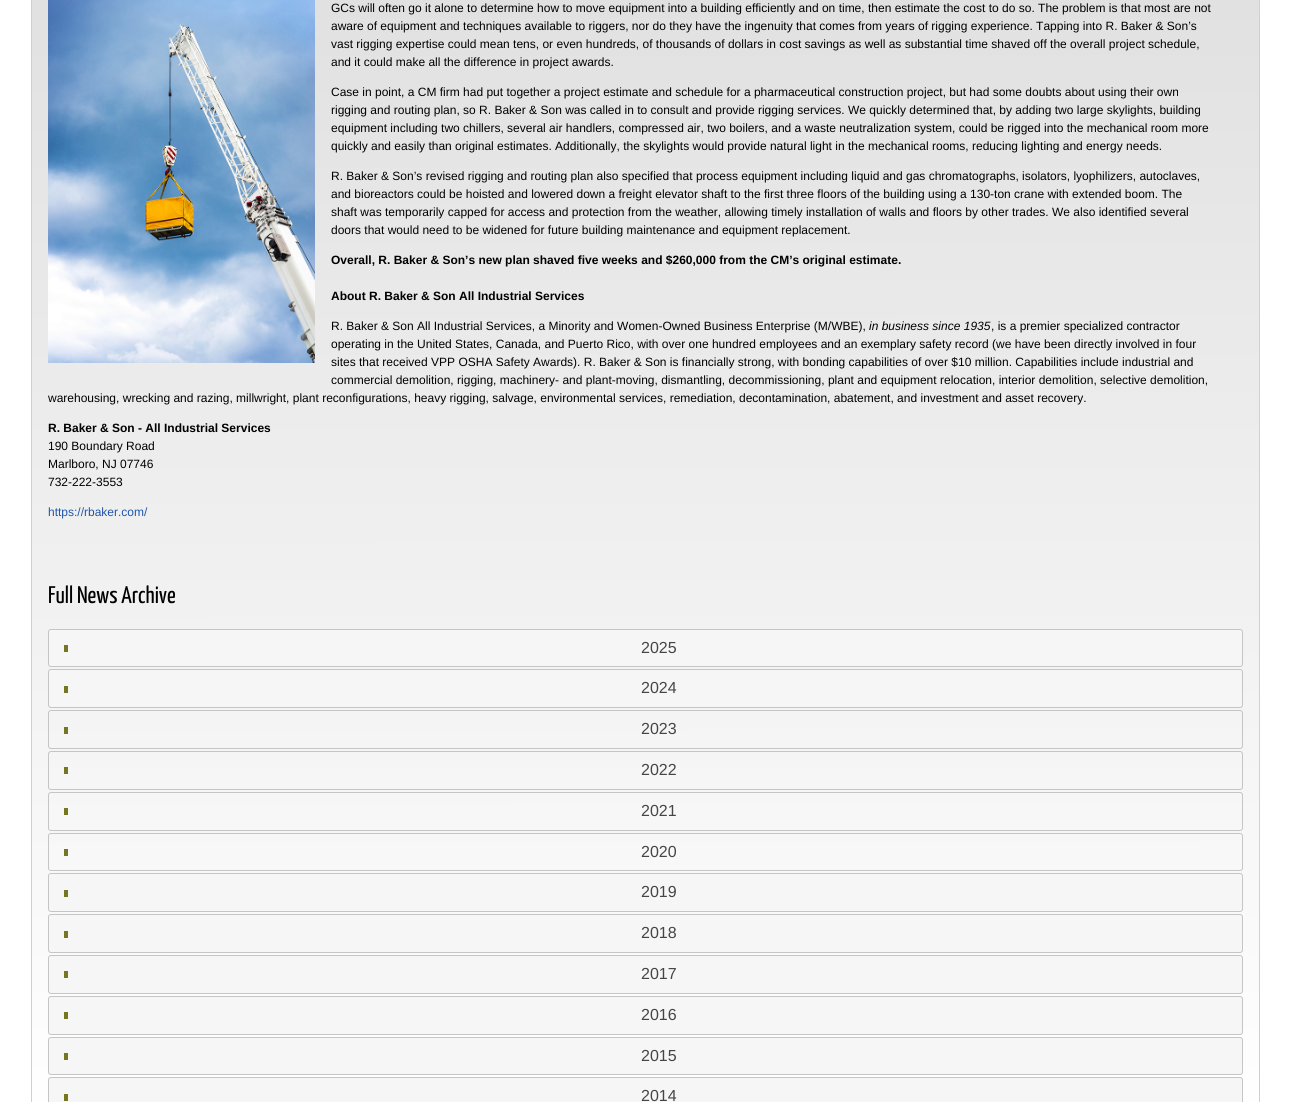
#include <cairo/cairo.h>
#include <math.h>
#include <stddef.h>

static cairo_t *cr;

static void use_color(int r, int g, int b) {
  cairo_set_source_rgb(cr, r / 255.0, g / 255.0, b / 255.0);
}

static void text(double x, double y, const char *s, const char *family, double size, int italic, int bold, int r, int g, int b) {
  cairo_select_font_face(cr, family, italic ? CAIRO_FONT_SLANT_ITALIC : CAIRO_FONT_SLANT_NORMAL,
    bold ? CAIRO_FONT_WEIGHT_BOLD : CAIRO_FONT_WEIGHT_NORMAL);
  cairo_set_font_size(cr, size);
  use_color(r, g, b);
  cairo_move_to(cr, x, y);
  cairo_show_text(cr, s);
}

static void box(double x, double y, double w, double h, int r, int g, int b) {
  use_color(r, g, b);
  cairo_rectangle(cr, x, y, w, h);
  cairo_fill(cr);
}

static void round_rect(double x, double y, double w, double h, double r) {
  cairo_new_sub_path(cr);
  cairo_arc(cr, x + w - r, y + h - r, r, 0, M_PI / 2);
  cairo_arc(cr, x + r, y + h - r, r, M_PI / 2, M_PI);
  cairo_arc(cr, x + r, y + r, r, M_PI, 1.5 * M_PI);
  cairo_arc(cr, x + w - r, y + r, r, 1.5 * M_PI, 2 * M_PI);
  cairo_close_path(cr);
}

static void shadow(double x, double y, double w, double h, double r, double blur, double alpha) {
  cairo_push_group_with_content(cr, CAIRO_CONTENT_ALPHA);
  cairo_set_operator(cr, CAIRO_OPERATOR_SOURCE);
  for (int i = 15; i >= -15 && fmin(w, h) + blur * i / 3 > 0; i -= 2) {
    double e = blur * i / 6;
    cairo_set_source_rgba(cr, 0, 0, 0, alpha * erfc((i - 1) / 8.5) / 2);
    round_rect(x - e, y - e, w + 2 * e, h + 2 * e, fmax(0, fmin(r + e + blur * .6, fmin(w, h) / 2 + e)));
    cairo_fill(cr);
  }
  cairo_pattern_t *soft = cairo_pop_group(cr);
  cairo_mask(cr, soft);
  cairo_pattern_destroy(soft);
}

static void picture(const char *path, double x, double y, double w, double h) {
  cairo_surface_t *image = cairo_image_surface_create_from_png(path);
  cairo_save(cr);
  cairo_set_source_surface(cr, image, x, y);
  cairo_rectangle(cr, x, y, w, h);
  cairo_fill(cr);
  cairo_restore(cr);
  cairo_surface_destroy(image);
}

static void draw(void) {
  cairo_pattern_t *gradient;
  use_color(255, 255, 255);
  cairo_paint(cr);
  use_color(68, 68, 68);
  shadow(32, -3, 1227, 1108, 1, 0.5, 1);
  gradient = cairo_pattern_create_linear(645, -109, 646, 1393);
  cairo_pattern_add_color_stop_rgba(gradient, 0, 0.871, 0.871, 0.871, 1);
  cairo_pattern_add_color_stop_rgba(gradient, 0.82, 1, 1, 1, 1);
  cairo_set_source(cr, gradient);
  cairo_pattern_destroy(gradient);
  cairo_rectangle(cr, 32, 0, 1227, 1102);
  cairo_fill(cr);
  picture("img_01.png", 48, 0, 267, 363);
  use_color(246, 246, 246);
  round_rect(48.5, 629.5, 1194, 37, 2.5);
  cairo_fill_preserve(cr);
  use_color(197, 197, 197);
  cairo_set_line_width(cr, 1);
  cairo_stroke(cr);
  box(64, 645, 4, 7, 119, 118, 32);
  use_color(246, 246, 246);
  round_rect(48.5, 669.5, 1194, 38, 2.5);
  cairo_fill_preserve(cr);
  use_color(197, 197, 197);
  cairo_stroke(cr);
  box(64, 686, 4, 7, 119, 118, 32);
  round_rect(48.5, 710.5, 1194, 38, 2.5);
  use_color(197, 197, 197);
  cairo_stroke(cr);
  box(64, 727, 4, 7, 119, 118, 32);
  round_rect(48.5, 751.5, 1194, 38, 2.5);
  use_color(197, 197, 197);
  cairo_stroke(cr);
  box(64, 767, 4, 7, 119, 118, 32);
  round_rect(48.5, 792.5, 1194, 38, 2.5);
  use_color(197, 197, 197);
  cairo_stroke(cr);
  box(64, 808, 4, 7, 119, 118, 32);
  round_rect(48.5, 833.5, 1194, 37, 2.5);
  use_color(197, 197, 197);
  cairo_stroke(cr);
  box(64, 849, 4, 7, 119, 118, 32);
  use_color(246, 246, 246);
  round_rect(48.5, 873.5, 1194, 38, 2.5);
  cairo_fill_preserve(cr);
  use_color(197, 197, 197);
  cairo_stroke(cr);
  box(64, 890, 4, 7, 119, 118, 32);
  use_color(246, 246, 246);
  round_rect(48.5, 914.5, 1194, 38, 2.5);
  cairo_fill_preserve(cr);
  use_color(197, 197, 197);
  cairo_stroke(cr);
  box(64, 931, 4, 7, 119, 118, 32);
  use_color(246, 246, 246);
  round_rect(48.5, 955.5, 1194, 38, 2.5);
  cairo_fill_preserve(cr);
  use_color(197, 197, 197);
  cairo_stroke(cr);
  box(64, 971, 4, 7, 119, 118, 32);
  use_color(246, 246, 246);
  round_rect(48.5, 996.5, 1194, 38, 2.5);
  cairo_fill_preserve(cr);
  use_color(197, 197, 197);
  cairo_stroke(cr);
  box(64, 1012, 4, 7, 119, 118, 32);
  use_color(246, 246, 246);
  round_rect(48.5, 1037.5, 1194, 37, 2.5);
  cairo_fill_preserve(cr);
  use_color(197, 197, 197);
  cairo_stroke(cr);
  box(64, 1053, 4, 7, 119, 118, 32);
  use_color(246, 246, 246);
  round_rect(48.5, 1077.5, 1194, 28, 2.5);
  cairo_fill_preserve(cr);
  use_color(197, 197, 197);
  cairo_stroke(cr);
  box(64, 1094, 4, 7, 119, 118, 32);
  text(331, 12, "GCs will often go it alone to determine how to move equipment into a building efficiently and on time, then estimate the cost to do so. The problem is that most are not", "Liberation Sans", 12, 0, 0, 0, 0, 0);
  text(331, 30, "aware of equipment and techniques available to riggers, nor do they have the ingenuity that comes from years of rigging experience. Tapping into R. Baker & Son’s", "Liberation Sans", 12, 0, 0, 0, 0, 0);
  text(331, 48, "vast rigging expertise could mean tens, or even hundreds, of thousands of dollars in cost savings as well as substantial time shaved off the overall project schedule,", "Liberation Sans", 12, 0, 0, 0, 0, 0);
  text(331, 66, "and it could make all the difference in project awards.", "Liberation Sans", 12, 0, 0, 0, 0, 0);
  text(331, 96, "Case in point, a CM firm had put together a project estimate and schedule for a pharmaceutical construction project, but had some doubts about using their own", "Liberation Sans", 12, 0, 0, 0, 0, 0);
  text(331, 114, "rigging and routing plan, so R. Baker & Son was called in to consult and provide rigging services. We quickly determined that, by adding two large skylights, building", "Liberation Sans", 12, 0, 0, 0, 0, 0);
  text(331, 132, "equipment including two chillers, several air handlers, compressed air, two boilers, and a waste neutralization system, could be rigged into the mechanical room more", "Liberation Sans", 12, 0, 0, 0, 0, 0);
  text(331, 150, "quickly and easily than original estimates. Additionally, the skylights would provide natural light in the mechanical rooms, reducing lighting and energy needs.", "Liberation Sans", 12, 0, 0, 0, 0, 0);
  text(331, 180, "R. Baker & Son’s revised rigging and routing plan also specified that process equipment including liquid and gas chromatographs, isolators, lyophilizers, autoclaves,", "Liberation Sans", 12, 0, 0, 0, 0, 0);
  text(331, 198, "and bioreactors could be hoisted and lowered down a freight elevator shaft to the first three floors of the building using a 130-ton crane with extended boom. The", "Liberation Sans", 12, 0, 0, 0, 0, 0);
  text(331, 216, "shaft was temporarily capped for access and protection from the weather, allowing timely installation of walls and floors by other trades. We also identified several", "Liberation Sans", 12, 0, 0, 0, 0, 0);
  text(331, 234, "doors that would need to be widened for future building maintenance and equipment replacement.", "Liberation Sans", 12, 0, 0, 0, 0, 0);
  text(331, 264, "Overall, R. Baker & Son’s new plan shaved five weeks and $260,000 from the CM’s original estimate.", "Liberation Sans", 12, 0, 1, 0, 0, 0);
  text(331, 300, "About R. Baker & Son All Industrial Services", "Liberation Sans", 12, 0, 1, 0, 0, 0);
  text(331, 330, "R. Baker & Son All Industrial Services, a Minority and Women-Owned Business Enterprise (M/WBE),", "Liberation Sans", 12, 0, 0, 0, 0, 0);
  text(869, 330, "in business since 1935", "Liberation Sans", 12, 1, 0, 0, 0, 0);
  text(991, 330, ", is a premier specialized contractor", "Liberation Sans", 12, 0, 0, 0, 0, 0);
  text(331, 348, "operating in the United States, Canada, and Puerto Rico, with over one hundred employees and an exemplary safety record (we have been directly involved in four", "Liberation Sans", 12, 0, 0, 0, 0, 0);
  text(331, 366, "sites that received VPP OSHA Safety Awards). R. Baker & Son is financially strong, with bonding capabilities of over $10 million. Capabilities include industrial and", "Liberation Sans", 12, 0, 0, 0, 0, 0);
  text(331, 384, "commercial demolition, rigging, machinery- and plant-moving, dismantling, decommissioning, plant and equipment relocation, interior demolition, selective demolition,", "Liberation Sans", 12, 0, 0, 0, 0, 0);
  text(48, 402, "warehousing, wrecking and razing, millwright, plant reconfigurations, heavy rigging, salvage, environmental services, remediation, decontamination, abatement, and investment and asset recovery.", "Liberation Sans", 12, 0, 0, 0, 0, 0);
  text(48, 432, "R. Baker & Son - All Industrial Services", "Liberation Sans", 12, 0, 1, 0, 0, 0);
  text(48, 450, "190 Boundary Road", "Liberation Sans", 12, 0, 0, 0, 0, 0);
  text(48, 468, "Marlboro, NJ 07746", "Liberation Sans", 12, 0, 0, 0, 0, 0);
  text(48, 486, "732-222-3553", "Liberation Sans", 12, 0, 0, 0, 0, 0);
  text(48, 516, "https://rbaker.com/", "Liberation Sans", 12, 0, 0, 32, 85, 173);
  text(48, 603, "Full News Archive", "Yanone Kaffeesatz ExtraLight", 24, 0, 0, 0, 0, 0);
  text(641, 653, "2025", "Liberation Sans", 16, 0, 0, 69, 69, 69);
  text(641, 693, "2024", "Liberation Sans", 16, 0, 0, 69, 69, 69);
  text(641, 734, "2023", "Liberation Sans", 16, 0, 0, 69, 69, 69);
  text(641, 775, "2022", "Liberation Sans", 16, 0, 0, 69, 69, 69);
  text(641, 816, "2021", "Liberation Sans", 16, 0, 0, 69, 69, 69);
  text(641, 857, "2020", "Liberation Sans", 16, 0, 0, 69, 69, 69);
  text(641, 897, "2019", "Liberation Sans", 16, 0, 0, 69, 69, 69);
  text(641, 938, "2018", "Liberation Sans", 16, 0, 0, 69, 69, 69);
  text(641, 979, "2017", "Liberation Sans", 16, 0, 0, 69, 69, 69);
  text(641, 1020, "2016", "Liberation Sans", 16, 0, 0, 69, 69, 69);
  text(641, 1061, "2015", "Liberation Sans", 16, 0, 0, 69, 69, 69);
  text(641, 1101, "2014", "Liberation Sans", 16, 0, 0, 69, 69, 69);
}

int main(void) {
  cairo_surface_t *surface = cairo_image_surface_create(CAIRO_FORMAT_RGB24, 1291, 1102);
  cr = cairo_create(surface);
  cairo_font_options_t *options = cairo_font_options_create();
  cairo_font_options_set_hint_metrics(options, CAIRO_HINT_METRICS_OFF);
  cairo_font_options_set_hint_style(options, CAIRO_HINT_STYLE_NONE);
  cairo_set_font_options(cr, options);
  cairo_set_miter_limit(cr, 4);
  draw();
  cairo_surface_write_to_png(surface, "out.png");
  cairo_font_options_destroy(options);
  cairo_destroy(cr);
  cairo_surface_destroy(surface);
  return 0;
}
